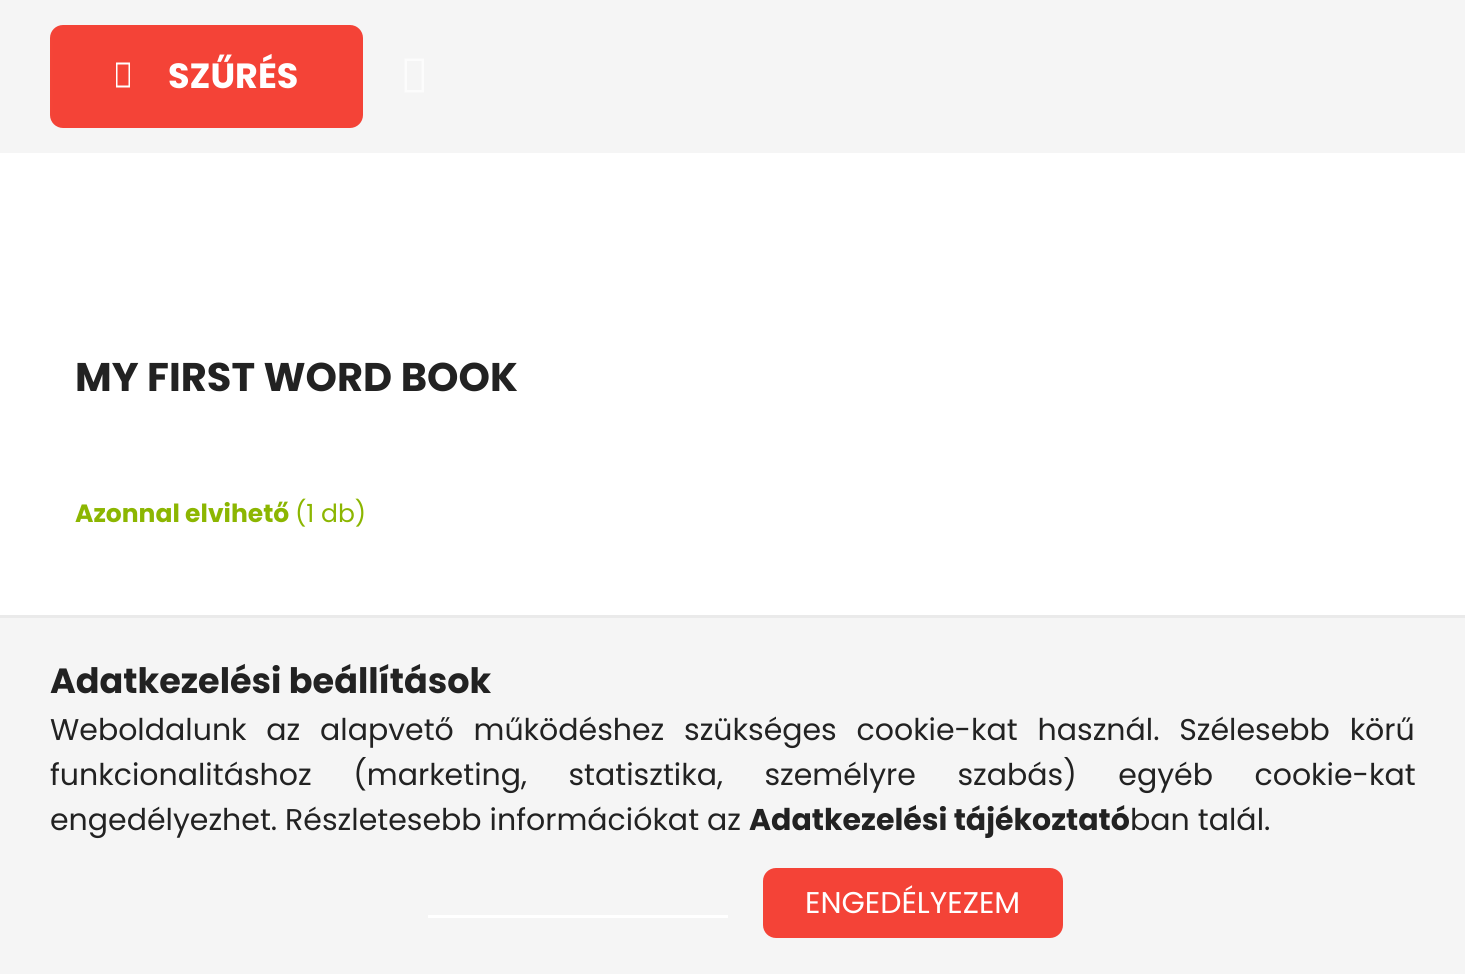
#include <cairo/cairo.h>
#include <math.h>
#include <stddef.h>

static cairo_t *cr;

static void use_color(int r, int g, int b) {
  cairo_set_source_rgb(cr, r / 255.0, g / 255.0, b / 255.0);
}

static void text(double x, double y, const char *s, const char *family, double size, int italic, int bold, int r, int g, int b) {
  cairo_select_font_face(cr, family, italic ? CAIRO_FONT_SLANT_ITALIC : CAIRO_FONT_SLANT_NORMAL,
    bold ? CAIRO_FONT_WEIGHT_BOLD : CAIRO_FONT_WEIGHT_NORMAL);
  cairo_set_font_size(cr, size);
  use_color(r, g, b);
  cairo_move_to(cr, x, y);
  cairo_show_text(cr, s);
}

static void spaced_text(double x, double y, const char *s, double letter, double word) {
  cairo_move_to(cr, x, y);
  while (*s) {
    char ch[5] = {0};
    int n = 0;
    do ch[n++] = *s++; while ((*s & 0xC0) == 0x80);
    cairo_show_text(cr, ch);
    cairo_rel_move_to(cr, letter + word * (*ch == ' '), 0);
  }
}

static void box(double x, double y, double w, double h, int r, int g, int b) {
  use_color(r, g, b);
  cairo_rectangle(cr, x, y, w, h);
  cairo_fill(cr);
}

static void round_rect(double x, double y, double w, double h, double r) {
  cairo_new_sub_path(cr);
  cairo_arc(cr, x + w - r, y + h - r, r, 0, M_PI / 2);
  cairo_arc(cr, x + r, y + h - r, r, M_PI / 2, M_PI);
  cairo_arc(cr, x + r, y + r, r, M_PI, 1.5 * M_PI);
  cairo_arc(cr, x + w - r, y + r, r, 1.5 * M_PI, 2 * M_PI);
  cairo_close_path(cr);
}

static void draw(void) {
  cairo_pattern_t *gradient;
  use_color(255, 255, 255);
  cairo_paint(cr);
  box(0, 0, 1465, 153, 245, 245, 245);
  gradient = cairo_pattern_create_linear(-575, 76, 363, 76);
  cairo_pattern_add_color_stop_rgba(gradient, 0, 0.549, 0.714, 0.004, 1);
  cairo_pattern_add_color_stop_rgba(gradient, 0.33, 0.82, 0.898, 0.537, 1);
  cairo_pattern_add_color_stop_rgba(gradient, 0.67, 0.957, 0.263, 0.216, 1);
  cairo_pattern_add_color_stop_rgba(gradient, 1, 0.957, 0.263, 0.216, 1);
  cairo_set_source(cr, gradient);
  cairo_pattern_destroy(gradient);
  round_rect(50, 25, 313, 103, 13);
  cairo_fill(cr);
  use_color(255, 255, 255);
  cairo_new_path(cr);
  cairo_move_to(cr, 116, 87.5);
  cairo_line_to(cr, 116, 62.5);
  cairo_line_to(cr, 130, 62.5);
  cairo_line_to(cr, 130, 87.5);
  cairo_close_path(cr);
  cairo_move_to(cr, 117.5, 85.5);
  cairo_line_to(cr, 128.5, 85.5);
  cairo_line_to(cr, 128.5, 64.5);
  cairo_line_to(cr, 117.5, 64.5);
  cairo_close_path(cr);
  cairo_fill(cr);
  use_color(252, 252, 252);
  cairo_new_path(cr);
  cairo_move_to(cr, 404.5, 92.5);
  cairo_line_to(cr, 404.5, 58.5);
  cairo_line_to(cr, 424, 58.5);
  cairo_line_to(cr, 424, 92.5);
  cairo_close_path(cr);
  cairo_move_to(cr, 407, 90);
  cairo_line_to(cr, 421.5, 90);
  cairo_line_to(cr, 421.5, 61);
  cairo_line_to(cr, 407, 61);
  cairo_close_path(cr);
  cairo_fill(cr);
  box(0, 618, 1465, 356, 245, 245, 245);
  box(0, 615, 1465, 3, 234, 234, 234);
  gradient = cairo_pattern_create_linear(163, 903, 1063, 903);
  cairo_pattern_add_color_stop_rgba(gradient, 0, 0.549, 0.714, 0.004, 1);
  cairo_pattern_add_color_stop_rgba(gradient, 0.33, 0.82, 0.898, 0.537, 1);
  cairo_pattern_add_color_stop_rgba(gradient, 0.67, 0.957, 0.263, 0.216, 1);
  cairo_pattern_add_color_stop_rgba(gradient, 1, 0.957, 0.263, 0.216, 1);
  cairo_set_source(cr, gradient);
  cairo_pattern_destroy(gradient);
  round_rect(763, 868, 300, 70, 13);
  cairo_fill(cr);
  box(428, 915, 300, 3, 255, 255, 255);
  text(168, 88, "SZŰRÉS", "Poppins", 35, 0, 1, 255, 255, 255);
  text(75, 391, "MY FIRST WORD BOOK", "Poppins", 40, 0, 1, 34, 34, 34);
  text(75, 522, "Azonnal elvihető", "Poppins", 25, 0, 1, 140, 182, 1);
  text(295, 522, "(1 db)", "Poppins", 25, 0, 0, 140, 182, 1);
  text(50, 693, "Adatkezelési beállítások", "Poppins", 35, 0, 1, 34, 34, 34);
  cairo_select_font_face(cr, "Poppins", CAIRO_FONT_SLANT_NORMAL, CAIRO_FONT_WEIGHT_NORMAL);
  cairo_set_font_size(cr, 30);
  spaced_text(50, 740, "Weboldalunk az alapvető működéshez szükséges cookie-kat használ. Szélesebb körű", 0, 11.75);
  spaced_text(50, 785, "funkcionalitáshoz (marketing, statisztika, személyre szabás) egyéb cookie-kat", 0, 33.5);
  text(50, 830, "engedélyezhet. Részletesebb információkat az", "Poppins", 30, 0, 0, 34, 34, 34);
  text(749, 830, "Adatkezelési tájékoztató", "Poppins", 30, 0, 1, 34, 34, 34);
  text(1130, 830, "ban talál.", "Poppins", 30, 0, 0, 34, 34, 34);
  text(805, 913, "ENGEDÉLYEZEM", "Poppins", 30, 0, 0, 255, 255, 255);
}

int main(void) {
  cairo_surface_t *surface = cairo_image_surface_create(CAIRO_FORMAT_RGB24, 1465, 974);
  cr = cairo_create(surface);
  cairo_font_options_t *options = cairo_font_options_create();
  cairo_font_options_set_hint_metrics(options, CAIRO_HINT_METRICS_OFF);
  cairo_font_options_set_hint_style(options, CAIRO_HINT_STYLE_NONE);
  cairo_set_font_options(cr, options);
  cairo_set_miter_limit(cr, 4);
  draw();
  cairo_surface_write_to_png(surface, "out.png");
  cairo_font_options_destroy(options);
  cairo_destroy(cr);
  cairo_surface_destroy(surface);
  return 0;
}
